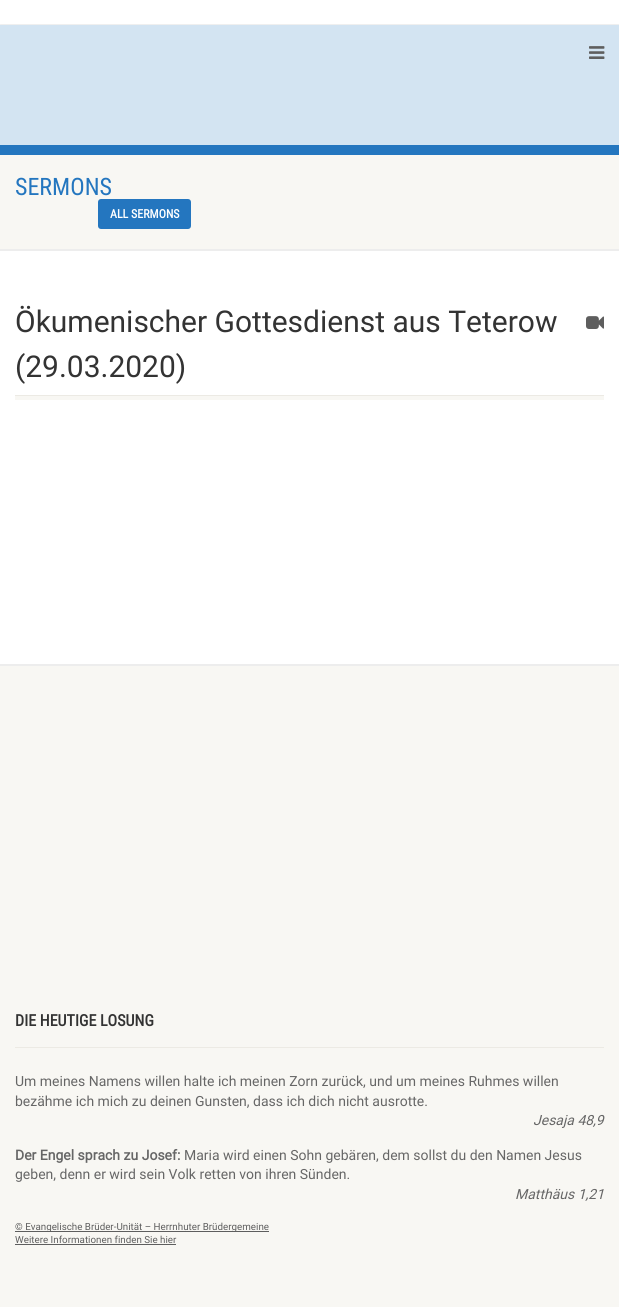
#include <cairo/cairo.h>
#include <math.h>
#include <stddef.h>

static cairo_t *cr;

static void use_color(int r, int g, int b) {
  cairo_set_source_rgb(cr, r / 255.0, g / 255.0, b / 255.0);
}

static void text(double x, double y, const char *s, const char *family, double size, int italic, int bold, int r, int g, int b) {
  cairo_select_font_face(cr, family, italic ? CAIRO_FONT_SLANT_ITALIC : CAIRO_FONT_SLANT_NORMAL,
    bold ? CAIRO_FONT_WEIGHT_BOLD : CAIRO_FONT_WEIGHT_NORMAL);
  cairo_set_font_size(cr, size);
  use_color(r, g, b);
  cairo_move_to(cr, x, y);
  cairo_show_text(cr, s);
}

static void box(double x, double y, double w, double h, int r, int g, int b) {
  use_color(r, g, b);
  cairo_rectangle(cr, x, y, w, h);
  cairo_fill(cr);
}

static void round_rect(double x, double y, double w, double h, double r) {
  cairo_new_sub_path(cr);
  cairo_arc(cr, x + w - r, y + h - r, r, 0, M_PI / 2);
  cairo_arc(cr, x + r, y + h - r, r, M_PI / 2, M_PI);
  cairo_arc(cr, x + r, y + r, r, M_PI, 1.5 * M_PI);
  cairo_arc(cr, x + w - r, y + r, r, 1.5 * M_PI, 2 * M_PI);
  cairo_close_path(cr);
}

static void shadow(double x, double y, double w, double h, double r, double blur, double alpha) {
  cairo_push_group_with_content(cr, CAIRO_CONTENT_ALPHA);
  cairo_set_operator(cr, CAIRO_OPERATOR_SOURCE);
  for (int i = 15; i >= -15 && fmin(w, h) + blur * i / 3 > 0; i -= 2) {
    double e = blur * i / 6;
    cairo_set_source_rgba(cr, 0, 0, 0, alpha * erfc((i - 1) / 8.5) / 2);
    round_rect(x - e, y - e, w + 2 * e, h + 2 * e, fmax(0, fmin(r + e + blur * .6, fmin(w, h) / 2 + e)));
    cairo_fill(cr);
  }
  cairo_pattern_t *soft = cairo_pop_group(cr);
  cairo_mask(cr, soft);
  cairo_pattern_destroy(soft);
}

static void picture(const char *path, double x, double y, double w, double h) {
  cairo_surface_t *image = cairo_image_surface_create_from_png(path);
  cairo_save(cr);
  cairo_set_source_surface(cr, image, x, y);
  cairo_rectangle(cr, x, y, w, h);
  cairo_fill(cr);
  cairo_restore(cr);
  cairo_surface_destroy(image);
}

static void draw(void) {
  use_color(255, 255, 255);
  cairo_paint(cr);
  cairo_save(cr);
  cairo_rectangle(cr, 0, 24, 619, 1);
  cairo_clip(cr);
  use_color(0, 0, 0);
  shadow(0, 25, 619, 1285, 0, 1, 0.2);
  cairo_restore(cr);
  box(0, 25, 619, 120, 211, 228, 242);
  picture("img_01.png", 589, 46, 16, 13);
  box(0, 145, 619, 10, 36, 118, 191);
  box(0, 249, 619, 2, 237, 237, 237);
  box(0, 155, 619, 94, 248, 247, 243);
  use_color(36, 118, 191);
  round_rect(98, 199, 93, 30, 3);
  cairo_fill(cr);
  box(15, 395, 589, 1, 236, 234, 228);
  picture("img_02.png", 586, 316, 18, 13);
  box(15, 396, 589, 4, 248, 247, 243);
  box(0, 664, 619, 2, 237, 237, 237);
  box(0, 666, 619, 641, 248, 247, 243);
  box(15, 1047, 589, 1, 236, 234, 228);
  box(15, 1231, 254, 1, 94, 94, 94);
  box(15, 1244, 161, 1, 94, 94, 94);
  text(15, 195, "SERMONS", "Roboto Condensed", 24, 0, 0, 36, 118, 191);
  text(110, 218, "ALL SERMONS", "Roboto Condensed", 12, 0, 1, 255, 255, 255);
  text(15, 332, "Ökumenischer Gottesdienst aus Teterow", "Roboto", 30, 0, 0, 51, 51, 51);
  text(15, 377, "(29.03.2020)", "Roboto", 30, 0, 0, 51, 51, 51);
  text(15, 1026, "DIE HEUTIGE LOSUNG", "Roboto Condensed", 16, 0, 1, 51, 51, 51);
  text(15, 1086, "Um meines Namens willen halte ich meinen Zorn zurück, und um meines Ruhmes willen", "Roboto", 14, 0, 0, 102, 102, 102);
  text(15, 1106, "bezähme ich mich zu deinen Gunsten, dass ich dich nicht ausrotte.", "Roboto", 14, 0, 0, 102, 102, 102);
  text(533, 1125, "Jesaja 48,9", "Roboto", 14, 1, 0, 102, 102, 102);
  text(15, 1160, "Der Engel sprach zu Josef:", "Roboto", 14, 0, 1, 102, 102, 102);
  text(184, 1160, "Maria wird einen Sohn gebären, dem sollst du den Namen Jesus", "Roboto", 14, 0, 0, 102, 102, 102);
  text(15, 1179, "geben, denn er wird sein Volk retten von ihren Sünden.", "Roboto", 14, 0, 0, 102, 102, 102);
  text(515, 1199, "Matthäus 1,21", "Roboto", 14, 1, 0, 102, 102, 102);
  text(15, 1230, "© Evangelische Brüder-Unität – Herrnhuter Brüdergemeine", "Roboto", 9.8, 0, 0, 94, 94, 94);
  text(15, 1243, "Weitere Informationen finden Sie hier", "Roboto", 9.8, 0, 0, 94, 94, 94);
}

int main(void) {
  cairo_surface_t *surface = cairo_image_surface_create(CAIRO_FORMAT_RGB24, 619, 1307);
  cr = cairo_create(surface);
  cairo_font_options_t *options = cairo_font_options_create();
  cairo_font_options_set_hint_metrics(options, CAIRO_HINT_METRICS_OFF);
  cairo_font_options_set_hint_style(options, CAIRO_HINT_STYLE_NONE);
  cairo_set_font_options(cr, options);
  cairo_set_miter_limit(cr, 4);
  draw();
  cairo_surface_write_to_png(surface, "out.png");
  cairo_font_options_destroy(options);
  cairo_destroy(cr);
  cairo_surface_destroy(surface);
  return 0;
}
